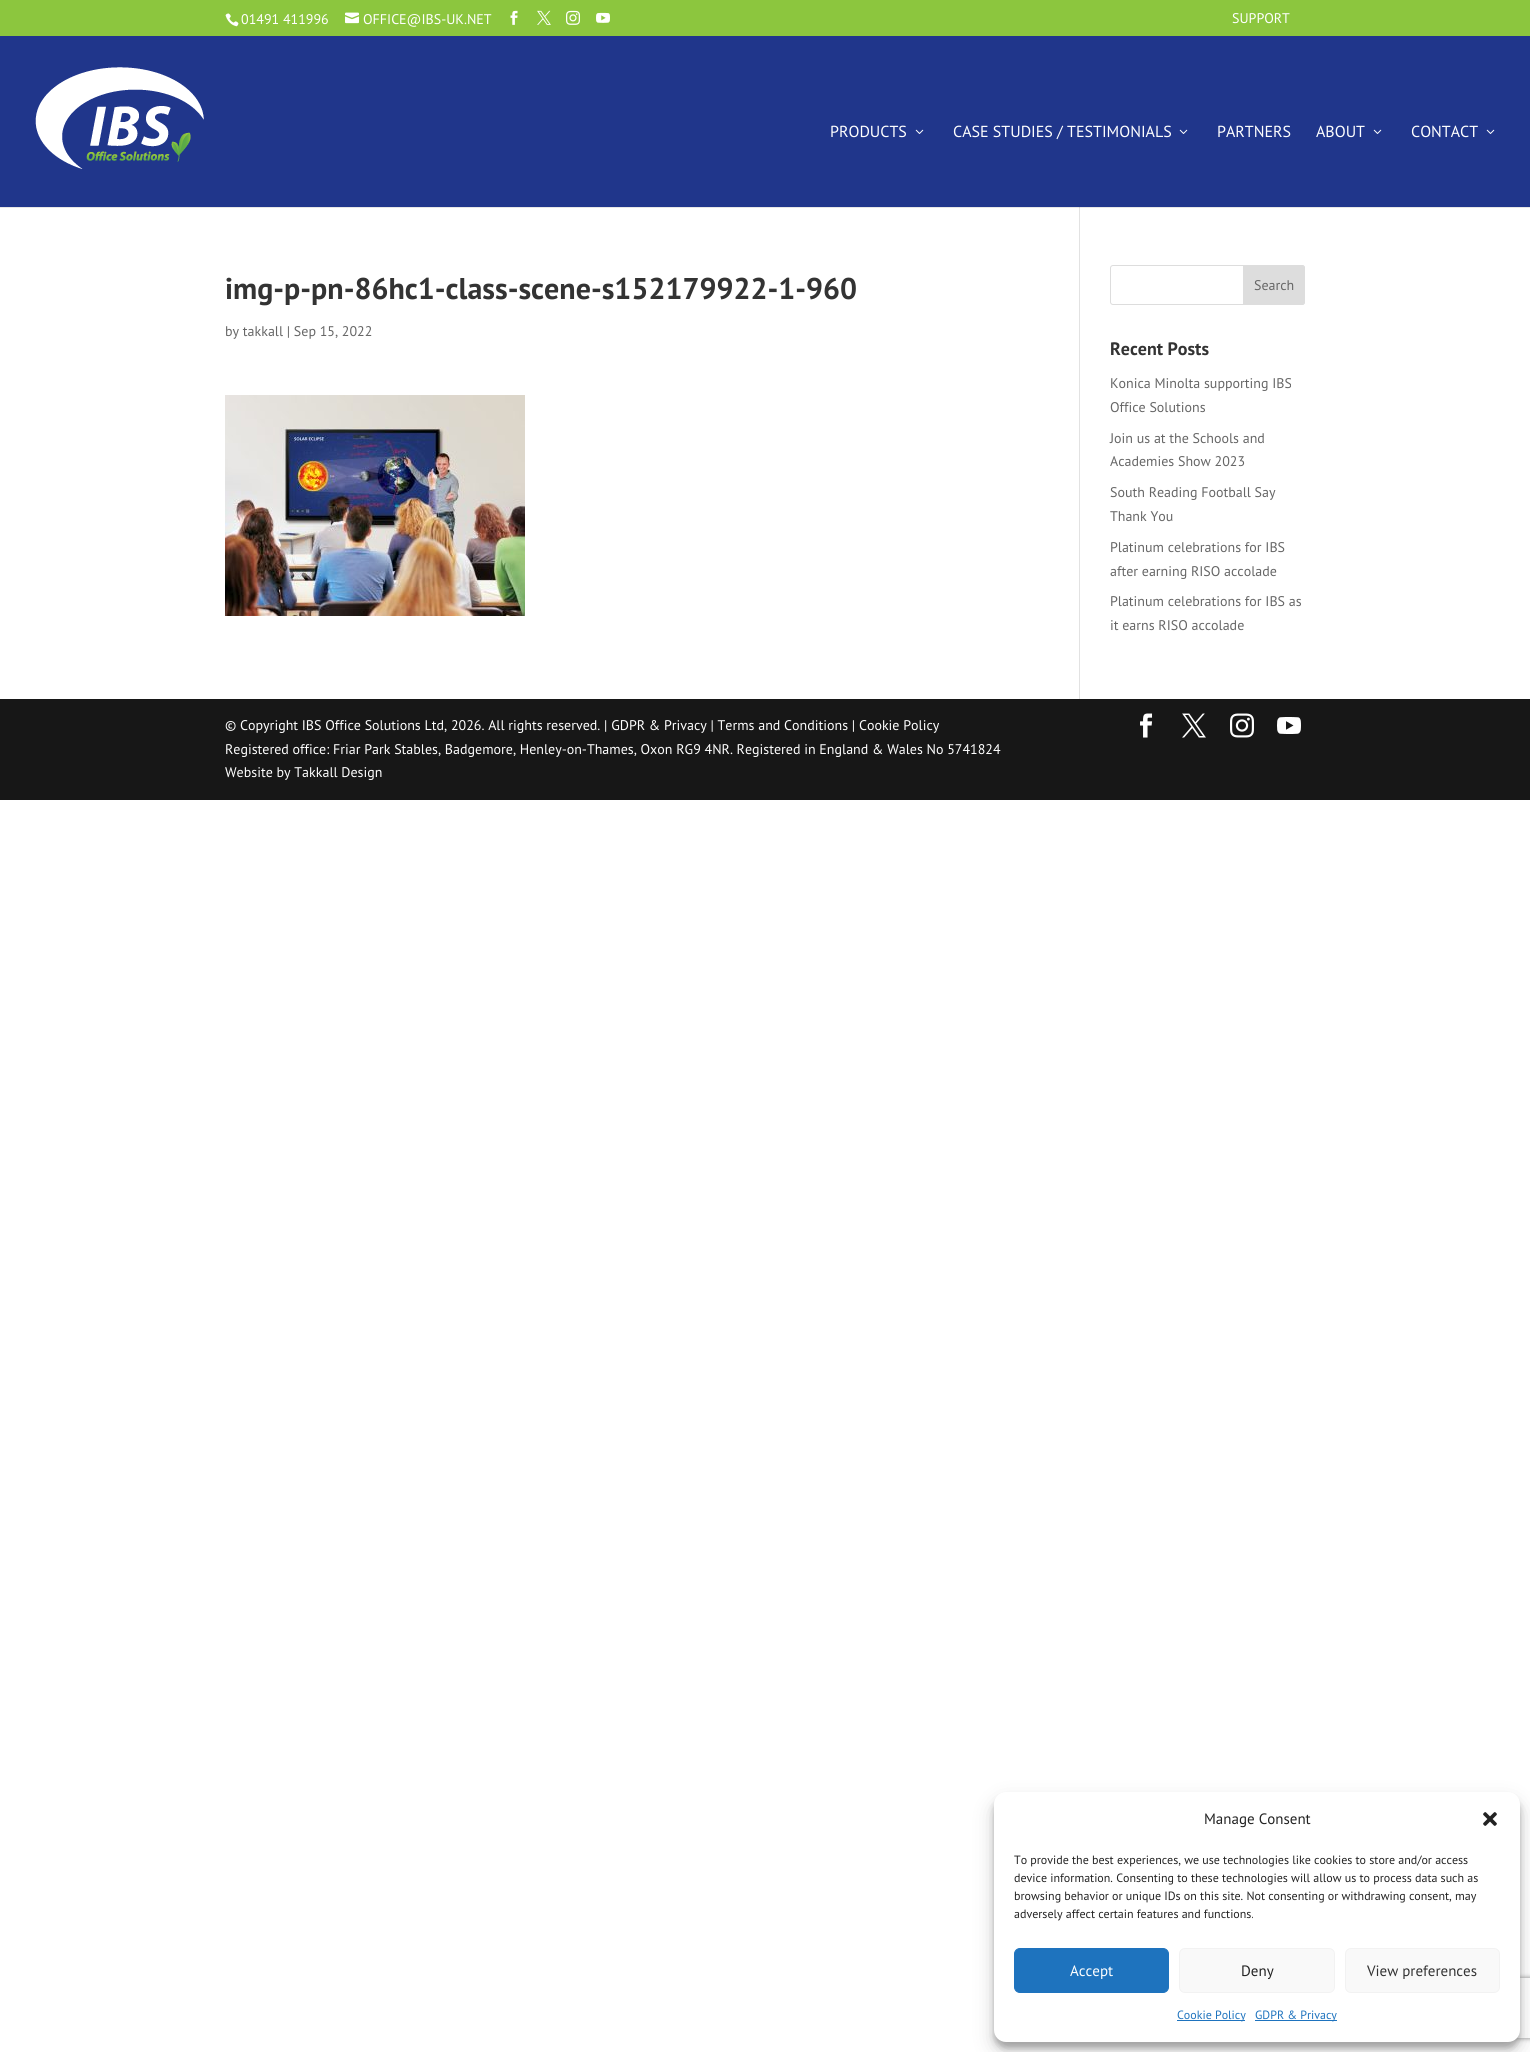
#include <cairo/cairo.h>
#include <math.h>
#include <stddef.h>

static cairo_t *cr;

static void use_color(int r, int g, int b) {
  cairo_set_source_rgb(cr, r / 255.0, g / 255.0, b / 255.0);
}

static void text(double x, double y, const char *s, const char *family, double size, int italic, int bold, int r, int g, int b) {
  cairo_select_font_face(cr, family, italic ? CAIRO_FONT_SLANT_ITALIC : CAIRO_FONT_SLANT_NORMAL,
    bold ? CAIRO_FONT_WEIGHT_BOLD : CAIRO_FONT_WEIGHT_NORMAL);
  cairo_set_font_size(cr, size);
  use_color(r, g, b);
  cairo_move_to(cr, x, y);
  cairo_show_text(cr, s);
}

static void box(double x, double y, double w, double h, int r, int g, int b) {
  use_color(r, g, b);
  cairo_rectangle(cr, x, y, w, h);
  cairo_fill(cr);
}

static void round_rect(double x, double y, double w, double h, double r) {
  cairo_new_sub_path(cr);
  cairo_arc(cr, x + w - r, y + h - r, r, 0, M_PI / 2);
  cairo_arc(cr, x + r, y + h - r, r, M_PI / 2, M_PI);
  cairo_arc(cr, x + r, y + r, r, M_PI, 1.5 * M_PI);
  cairo_arc(cr, x + w - r, y + r, r, 1.5 * M_PI, 2 * M_PI);
  cairo_close_path(cr);
}

static void shadow(double x, double y, double w, double h, double r, double blur, double alpha) {
  cairo_push_group_with_content(cr, CAIRO_CONTENT_ALPHA);
  cairo_set_operator(cr, CAIRO_OPERATOR_SOURCE);
  for (int i = 15; i >= -15 && fmin(w, h) + blur * i / 3 > 0; i -= 2) {
    double e = blur * i / 6;
    cairo_set_source_rgba(cr, 0, 0, 0, alpha * erfc((i - 1) / 8.5) / 2);
    round_rect(x - e, y - e, w + 2 * e, h + 2 * e, fmax(0, fmin(r + e + blur * .6, fmin(w, h) / 2 + e)));
    cairo_fill(cr);
  }
  cairo_pattern_t *soft = cairo_pop_group(cr);
  cairo_mask(cr, soft);
  cairo_pattern_destroy(soft);
}

static void picture(const char *path, double x, double y, double w, double h) {
  cairo_surface_t *image = cairo_image_surface_create_from_png(path);
  cairo_save(cr);
  cairo_set_source_surface(cr, image, x, y);
  cairo_rectangle(cr, x, y, w, h);
  cairo_fill(cr);
  cairo_restore(cr);
  cairo_surface_destroy(image);
}

static void draw(void) {
  use_color(255, 255, 255);
  cairo_paint(cr);
  box(0, 207, 1530, 1, 230, 230, 230);
  box(0, 0, 1530, 36, 140, 198, 62);
  picture("img_01.png", 225, 13, 14, 14);
  picture("img_02.png", 345, 12, 14, 12);
  picture("img_03.png", 510, 10, 8, 15);
  picture("img_04.png", 537, 10, 14, 15);
  picture("img_05.png", 566, 10, 14, 15);
  picture("img_06.png", 596, 12, 14, 11);
  box(0, 36, 1530, 171, 32, 54, 139);
  picture("img_07.png", 35, 67, 169, 102);
  picture("img_08.png", 915, 129, 9, 5);
  picture("img_08.png", 1179, 129, 9, 5);
  picture("img_08.png", 1373, 129, 9, 5);
  picture("img_08.png", 1486, 129, 9, 5);
  box(1079, 207, 1, 492, 226, 226, 226);
  box(1079, 207, 1, 1, 203, 203, 203);
  picture("img_09.png", 225, 395, 300, 221);
  round_rect(1110.5, 265.5, 194, 39, 2.5);
  use_color(221, 221, 221);
  cairo_set_line_width(cr, 1);
  cairo_stroke(cr);
  cairo_new_path(cr);
  cairo_move_to(cr, 1243.5, 265.5);
  cairo_line_to(cr, 1302, 265.5);
  cairo_curve_to(cr, 1303.5, 265.5, 1304.5, 266.5, 1304.5, 268);
  cairo_line_to(cr, 1304.5, 302);
  cairo_curve_to(cr, 1304.5, 303.5, 1303.5, 304.5, 1302, 304.5);
  cairo_line_to(cr, 1243.5, 304.5);
  cairo_close_path(cr);
  cairo_fill_preserve(cr);
  cairo_stroke(cr);
  box(0, 699, 1530, 101, 23, 23, 23);
  picture("img_10.png", 1140, 713, 13, 25);
  picture("img_11.png", 1182, 713, 24, 25);
  picture("img_12.png", 1230, 713, 24, 25);
  picture("img_13.png", 1277, 717, 24, 17);
  use_color(0, 0, 0);
  shadow(994, 1798, 526, 250, 12, 3, 0.23);
  shadow(994, 1802, 526, 250, 12, 10, 0.19);
  cairo_save(cr);
  cairo_set_fill_rule(cr, CAIRO_FILL_RULE_EVEN_ODD);
  cairo_new_path(cr);
  cairo_move_to(cr, 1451, 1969);
  cairo_line_to(cr, 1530, 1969);
  cairo_line_to(cr, 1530, 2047);
  cairo_line_to(cr, 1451, 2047);
  cairo_close_path(cr);
  cairo_move_to(cr, 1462, 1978);
  cairo_line_to(cr, 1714, 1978);
  cairo_curve_to(cr, 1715, 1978, 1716, 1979, 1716, 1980);
  cairo_line_to(cr, 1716, 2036);
  cairo_curve_to(cr, 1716, 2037, 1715, 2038, 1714, 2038);
  cairo_line_to(cr, 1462, 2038);
  cairo_curve_to(cr, 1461, 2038, 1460, 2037, 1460, 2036);
  cairo_line_to(cr, 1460, 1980);
  cairo_curve_to(cr, 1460, 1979, 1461, 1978, 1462, 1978);
  cairo_close_path(cr);
  cairo_clip(cr);
  use_color(128, 128, 128);
  shadow(1460, 1978, 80, 60, 2, 2.5, 1);
  cairo_restore(cr);
  use_color(255, 255, 255);
  round_rect(994, 1792, 526, 250, 12);
  cairo_fill(cr);
  picture("img_14.png", 1483, 1812, 14, 14);
  use_color(30, 115, 190);
  round_rect(1014.5, 1948.5, 154, 44, 5.5);
  cairo_fill_preserve(cr);
  cairo_stroke(cr);
  use_color(249, 249, 249);
  round_rect(1179.5, 1948.5, 155, 44, 5.5);
  cairo_fill_preserve(cr);
  use_color(242, 242, 242);
  cairo_stroke(cr);
  use_color(249, 249, 249);
  round_rect(1345.5, 1948.5, 154, 44, 5.5);
  cairo_fill_preserve(cr);
  use_color(242, 242, 242);
  cairo_stroke(cr);
  box(1177, 2020, 68, 1, 30, 115, 190);
  box(1255, 2020, 82, 1, 30, 115, 190);
  text(241, 24, "01491 411996", "PT Sans", 14, 0, 0, 255, 255, 255);
  text(363, 24, "OFFICE@IBS-UK.NET", "PT Sans", 14, 0, 0, 255, 255, 255);
  text(1232, 23, "SUPPORT", "PT Sans", 14, 0, 0, 255, 255, 255);
  text(830, 137, "PRODUCTS", "PT Sans", 16, 0, 0, 255, 255, 255);
  text(953, 137, "CASE STUDIES / TESTIMONIALS", "PT Sans", 16, 0, 0, 255, 255, 255);
  text(1217, 137, "PARTNERS", "PT Sans", 16, 0, 0, 255, 255, 255);
  text(1316, 137, "ABOUT", "PT Sans", 16, 0, 0, 255, 255, 255);
  text(1411, 137, "CONTACT", "PT Sans", 16, 0, 0, 255, 255, 255);
  text(225, 299, "img-p-pn-86hc1-class-scene-s152179922-1-960", "PT Sans", 30, 0, 1, 51, 51, 51);
  text(225, 336, "by takkall | Sep 15, 2022", "PT Sans", 14, 0, 0, 102, 102, 102);
  text(1254, 290, "Search", "PT Sans", 14, 0, 0, 102, 102, 102);
  text(1110, 355, "Recent Posts", "PT Sans", 18, 0, 1, 51, 51, 51);
  text(1110, 388, "Konica Minolta supporting IBS", "PT Sans", 14, 0, 0, 102, 102, 102);
  text(1110, 412, "Office Solutions", "PT Sans", 14, 0, 0, 102, 102, 102);
  text(1110, 443, "Join us at the Schools and", "PT Sans", 14, 0, 0, 102, 102, 102);
  text(1110, 466, "Academies Show 2023", "PT Sans", 14, 0, 0, 102, 102, 102);
  text(1110, 497, "South Reading Football Say", "PT Sans", 14, 0, 0, 102, 102, 102);
  text(1110, 521, "Thank You", "PT Sans", 14, 0, 0, 102, 102, 102);
  text(1110, 552, "Platinum celebrations for IBS", "PT Sans", 14, 0, 0, 102, 102, 102);
  text(1110, 576, "after earning RISO accolade", "PT Sans", 14, 0, 0, 102, 102, 102);
  text(1110, 606, "Platinum celebrations for IBS as", "PT Sans", 14, 0, 0, 102, 102, 102);
  text(1110, 630, "it earns RISO accolade", "PT Sans", 14, 0, 0, 102, 102, 102);
  text(225, 730, "© Copyright IBS Office Solutions Ltd, 2026. All rights reserved. | GDPR & Privacy | Terms and Conditions | Cookie Policy", "PT Sans", 14, 0, 0, 255, 255, 255);
  text(225, 754, "Registered office: Friar Park Stables, Badgemore, Henley-on-Thames, Oxon RG9 4NR. Registered in England & Wales No 5741824", "PT Sans", 14, 0, 0, 255, 255, 255);
  text(225, 777, "Website by Takkall Design", "PT Sans", 14, 0, 0, 255, 255, 255);
  text(1204, 1824, "Manage Consent", "PT Sans", 15, 0, 0, 34, 34, 34);
  text(1014, 1864, "To provide the best experiences, we use technologies like cookies to store and/or access", "PT Sans", 12, 0, 0, 34, 34, 34);
  text(1014, 1882, "device information. Consenting to these technologies will allow us to process data such as", "PT Sans", 12, 0, 0, 34, 34, 34);
  text(1014, 1900, "browsing behavior or unique IDs on this site. Not consenting or withdrawing consent, may", "PT Sans", 12, 0, 0, 34, 34, 34);
  text(1014, 1918, "adversely affect certain features and functions.", "PT Sans", 12, 0, 0, 34, 34, 34);
  text(1070, 1976, "Accept", "PT Sans", 15, 0, 0, 255, 255, 255);
  text(1241, 1976, "Deny", "PT Sans", 15, 0, 0, 34, 34, 34);
  text(1367, 1976, "View preferences", "PT Sans", 15, 0, 0, 51, 51, 51);
  text(1177, 2019, "Cookie Policy", "PT Sans", 12, 0, 0, 30, 115, 190);
  text(1255, 2019, "GDPR & Privacy", "PT Sans", 12, 0, 0, 30, 115, 190);
}

int main(void) {
  cairo_surface_t *surface = cairo_image_surface_create(CAIRO_FORMAT_RGB24, 1530, 2052);
  cr = cairo_create(surface);
  cairo_font_options_t *options = cairo_font_options_create();
  cairo_font_options_set_hint_metrics(options, CAIRO_HINT_METRICS_OFF);
  cairo_font_options_set_hint_style(options, CAIRO_HINT_STYLE_NONE);
  cairo_set_font_options(cr, options);
  cairo_set_miter_limit(cr, 4);
  draw();
  cairo_surface_write_to_png(surface, "out.png");
  cairo_font_options_destroy(options);
  cairo_destroy(cr);
  cairo_surface_destroy(surface);
  return 0;
}
